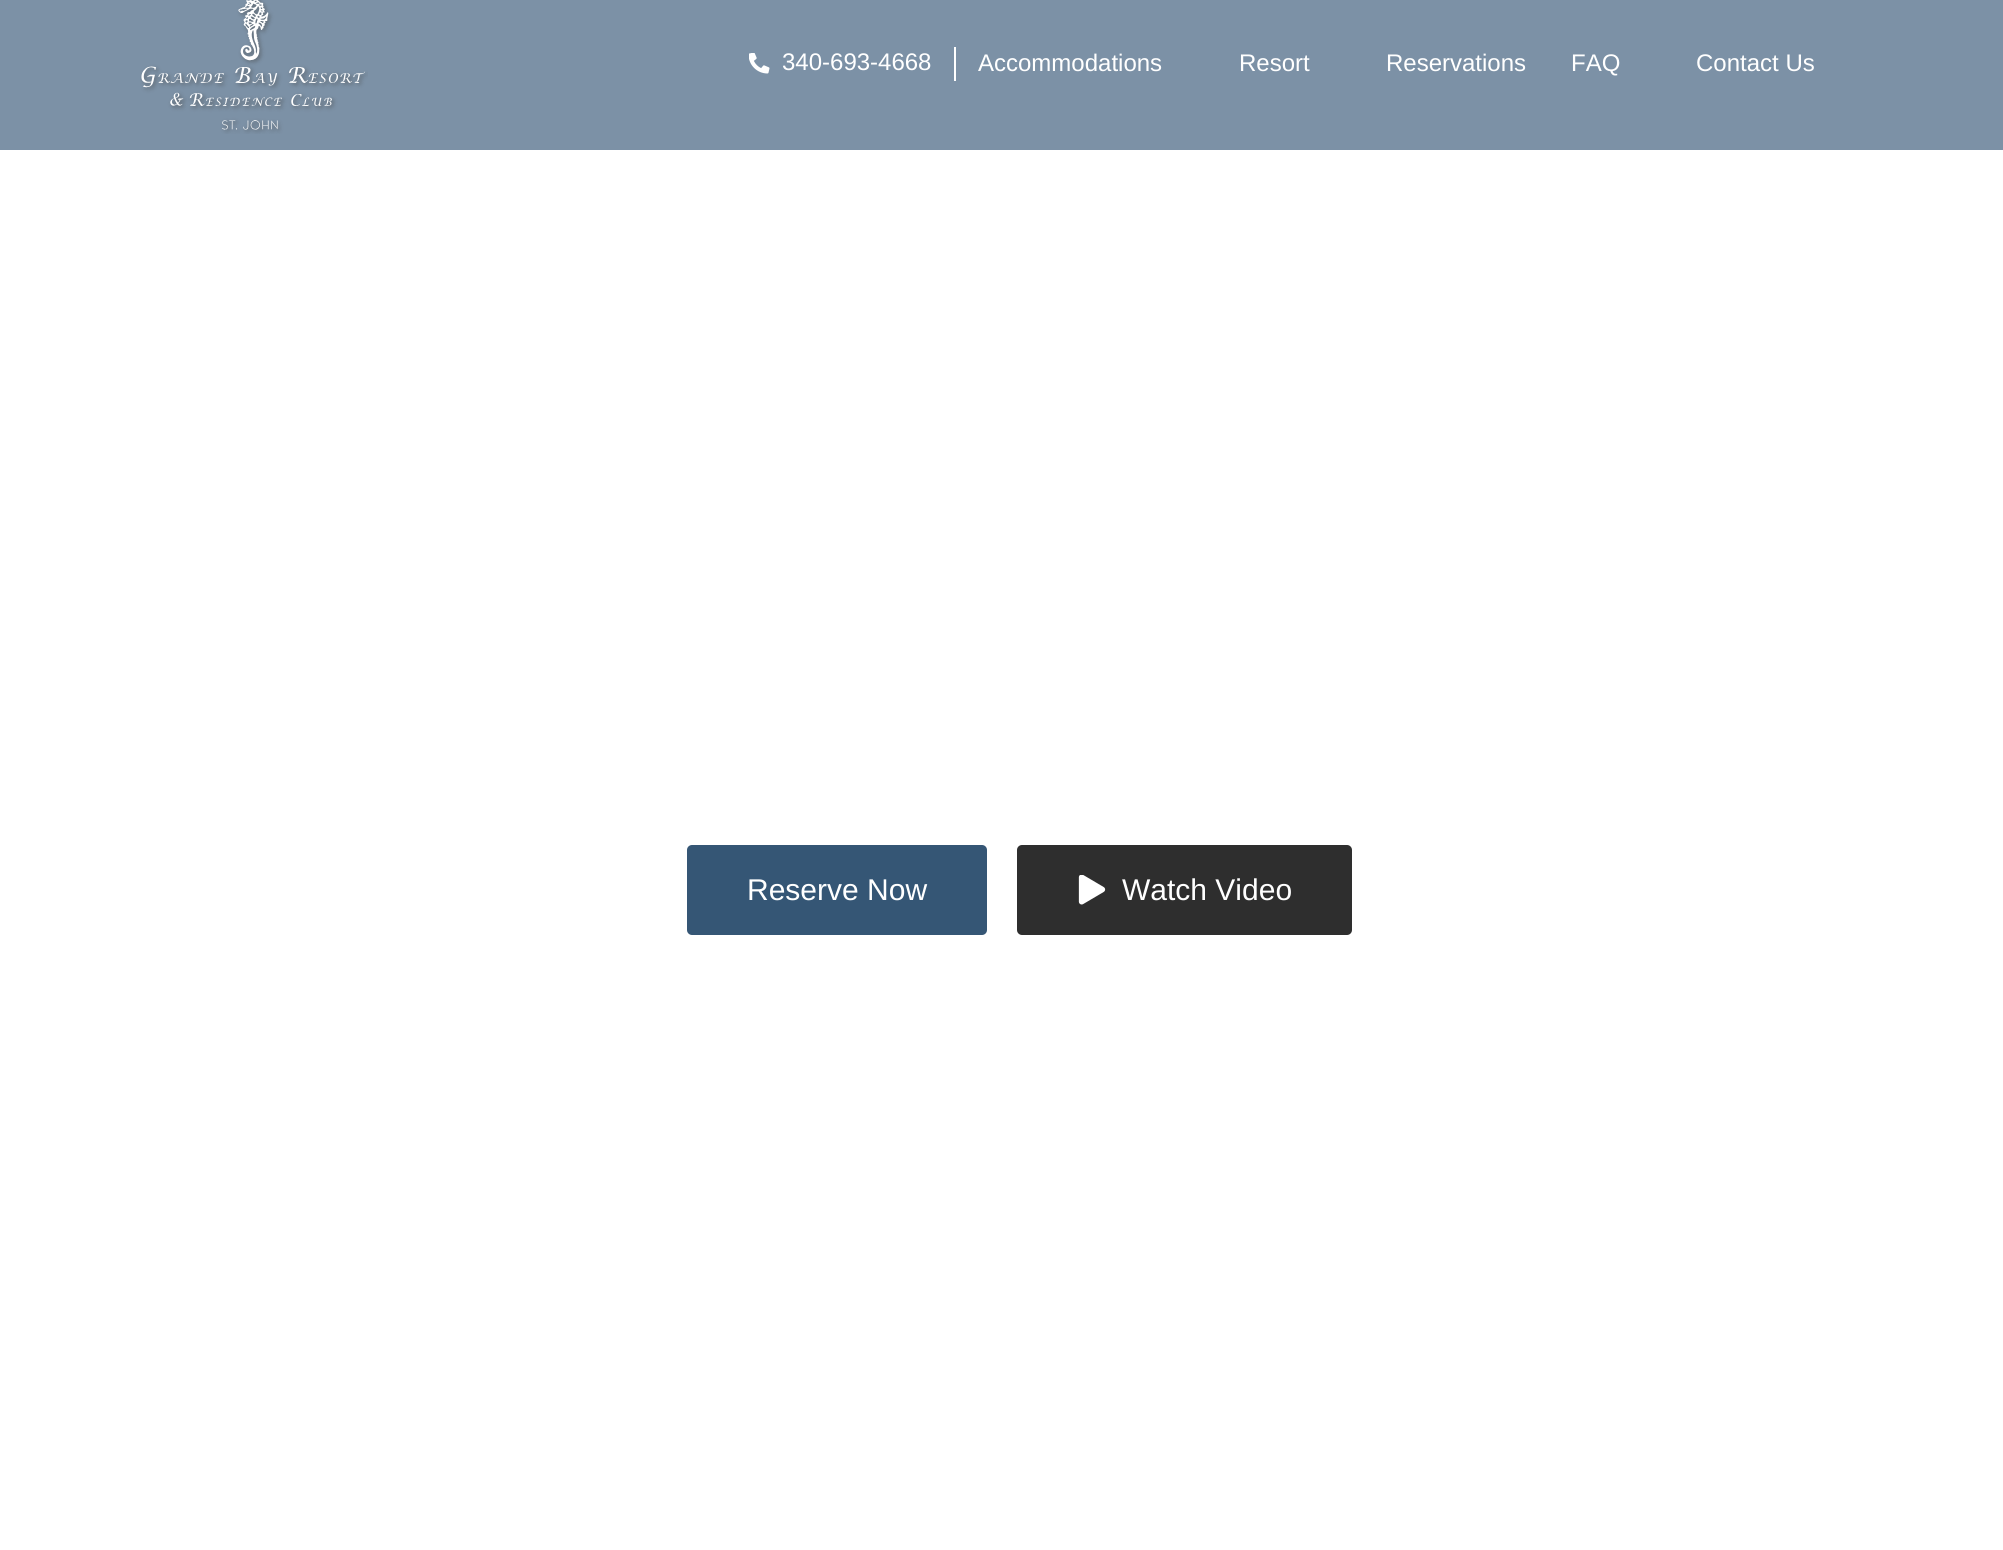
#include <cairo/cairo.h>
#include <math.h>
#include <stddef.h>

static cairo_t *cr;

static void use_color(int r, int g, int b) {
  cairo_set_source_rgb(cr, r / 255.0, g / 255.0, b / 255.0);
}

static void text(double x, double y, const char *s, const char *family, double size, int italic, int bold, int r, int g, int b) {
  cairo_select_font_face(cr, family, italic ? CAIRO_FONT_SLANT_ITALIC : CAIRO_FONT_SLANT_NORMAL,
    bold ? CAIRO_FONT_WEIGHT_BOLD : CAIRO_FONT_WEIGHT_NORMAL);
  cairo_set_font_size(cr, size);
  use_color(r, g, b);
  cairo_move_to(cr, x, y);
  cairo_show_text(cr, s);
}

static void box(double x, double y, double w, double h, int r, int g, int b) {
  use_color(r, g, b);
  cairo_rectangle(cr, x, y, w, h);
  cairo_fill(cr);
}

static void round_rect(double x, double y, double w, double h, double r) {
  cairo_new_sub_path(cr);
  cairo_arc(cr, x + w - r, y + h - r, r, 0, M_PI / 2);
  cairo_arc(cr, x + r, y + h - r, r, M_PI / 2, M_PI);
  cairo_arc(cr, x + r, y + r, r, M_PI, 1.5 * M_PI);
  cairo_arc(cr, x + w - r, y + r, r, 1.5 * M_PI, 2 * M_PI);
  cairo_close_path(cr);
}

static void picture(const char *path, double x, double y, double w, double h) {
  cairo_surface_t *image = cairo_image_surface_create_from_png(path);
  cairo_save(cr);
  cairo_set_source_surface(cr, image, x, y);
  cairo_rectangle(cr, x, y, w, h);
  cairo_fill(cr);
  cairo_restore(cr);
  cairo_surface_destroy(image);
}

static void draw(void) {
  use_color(255, 255, 255);
  cairo_paint(cr);
  box(0, 0, 2003, 150, 124, 145, 166);
  picture("img_01.png", 140, 0, 228, 134);
  box(954, 47, 2, 34, 255, 255, 255);
  picture("img_02.png", 749, 53, 21, 21);
  use_color(53, 86, 117);
  round_rect(687, 845, 300, 90, 5);
  cairo_fill(cr);
  use_color(46, 46, 46);
  round_rect(1017, 845, 335, 90, 5);
  cairo_fill(cr);
  picture("img_03.png", 1078, 875, 28, 30);
  text(782, 70, "340-693-4668", "Liberation Sans", 24, 0, 0, 255, 255, 255);
  text(978, 71, "Accommodations", "Liberation Sans", 24, 0, 0, 255, 255, 255);
  text(1239, 71, "Resort", "Liberation Sans", 24, 0, 0, 255, 255, 255);
  text(1386, 71, "Reservations", "Liberation Sans", 24, 0, 0, 255, 255, 255);
  text(1571, 71, "FAQ", "Liberation Sans", 24, 0, 0, 255, 255, 255);
  text(1696, 71, "Contact Us", "Liberation Sans", 24, 0, 0, 255, 255, 255);
  text(747, 900, "Reserve Now", "Liberation Sans", 30, 0, 0, 255, 255, 255);
  text(1122, 900, "Watch Video", "Liberation Sans", 30, 0, 0, 255, 255, 255);
}

int main(void) {
  cairo_surface_t *surface = cairo_image_surface_create(CAIRO_FORMAT_RGB24, 2003, 1550);
  cr = cairo_create(surface);
  cairo_font_options_t *options = cairo_font_options_create();
  cairo_font_options_set_hint_metrics(options, CAIRO_HINT_METRICS_OFF);
  cairo_font_options_set_hint_style(options, CAIRO_HINT_STYLE_NONE);
  cairo_set_font_options(cr, options);
  cairo_set_miter_limit(cr, 4);
  draw();
  cairo_surface_write_to_png(surface, "out.png");
  cairo_font_options_destroy(options);
  cairo_destroy(cr);
  cairo_surface_destroy(surface);
  return 0;
}
